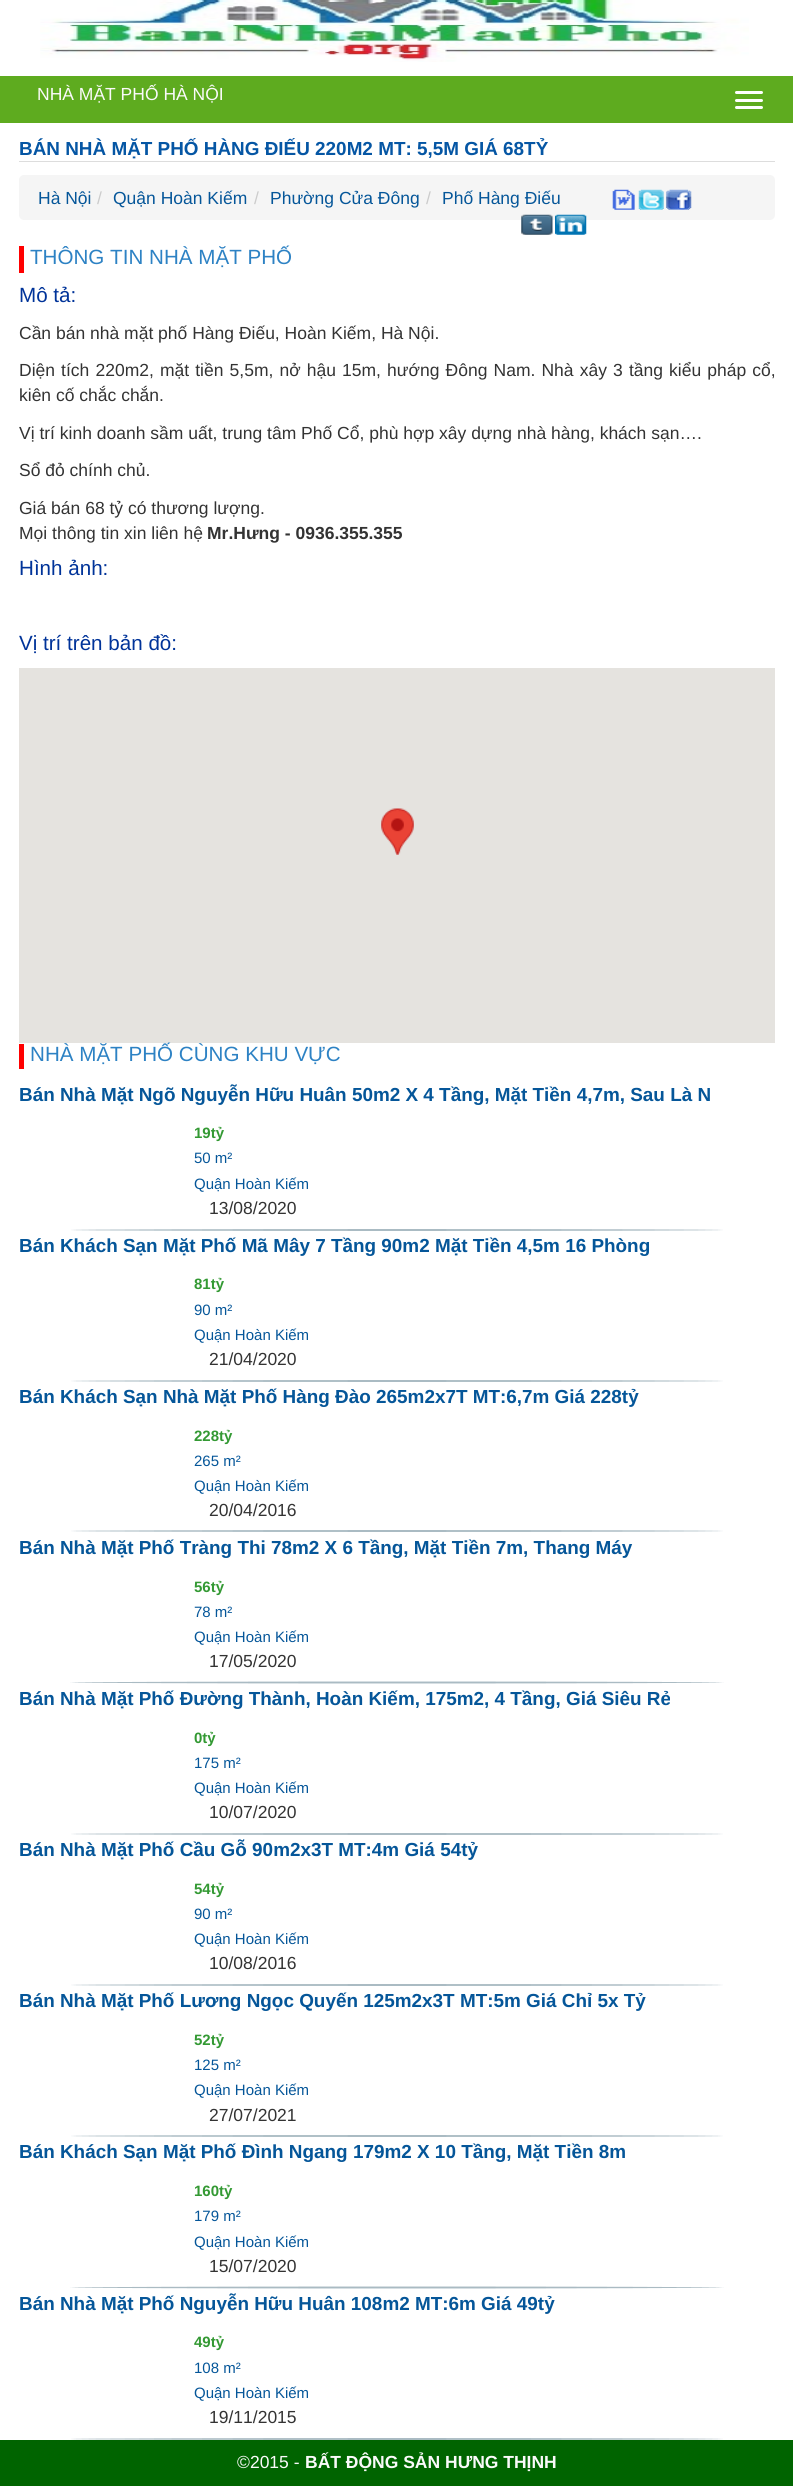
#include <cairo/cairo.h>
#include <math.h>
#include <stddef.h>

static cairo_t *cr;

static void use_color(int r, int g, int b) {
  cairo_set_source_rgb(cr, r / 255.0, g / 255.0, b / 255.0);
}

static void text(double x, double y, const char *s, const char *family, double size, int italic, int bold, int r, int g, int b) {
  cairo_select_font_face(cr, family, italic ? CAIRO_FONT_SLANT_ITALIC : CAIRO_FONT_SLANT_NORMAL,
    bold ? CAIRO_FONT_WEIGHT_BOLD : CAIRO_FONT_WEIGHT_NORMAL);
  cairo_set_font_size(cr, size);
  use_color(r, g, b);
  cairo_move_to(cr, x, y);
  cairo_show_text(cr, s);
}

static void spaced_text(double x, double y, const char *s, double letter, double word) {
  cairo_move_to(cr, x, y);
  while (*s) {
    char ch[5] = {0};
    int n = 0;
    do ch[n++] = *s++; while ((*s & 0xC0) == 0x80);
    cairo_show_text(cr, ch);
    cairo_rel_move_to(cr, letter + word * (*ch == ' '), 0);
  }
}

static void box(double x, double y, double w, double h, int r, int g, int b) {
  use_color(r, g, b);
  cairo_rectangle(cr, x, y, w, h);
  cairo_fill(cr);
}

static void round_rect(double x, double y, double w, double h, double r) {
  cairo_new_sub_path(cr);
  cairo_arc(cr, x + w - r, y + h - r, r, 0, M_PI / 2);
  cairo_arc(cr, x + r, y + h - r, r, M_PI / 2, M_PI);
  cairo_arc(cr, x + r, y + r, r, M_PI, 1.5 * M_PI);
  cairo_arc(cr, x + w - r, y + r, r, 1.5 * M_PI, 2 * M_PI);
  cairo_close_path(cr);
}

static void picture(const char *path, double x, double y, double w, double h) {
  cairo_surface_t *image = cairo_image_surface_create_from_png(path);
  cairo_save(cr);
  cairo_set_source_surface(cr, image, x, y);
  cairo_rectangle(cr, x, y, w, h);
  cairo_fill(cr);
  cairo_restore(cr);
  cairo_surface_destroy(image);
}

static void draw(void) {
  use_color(255, 255, 255);
  cairo_paint(cr);
  picture("img_01.png", 40, 0, 709, 62);
  box(0, 76, 793, 47, 94, 171, 31);
  use_color(255, 255, 255);
  round_rect(735, 91, 28, 3, 1.5);
  cairo_fill(cr);
  round_rect(735, 99, 28, 3, 1.5);
  cairo_fill(cr);
  round_rect(735, 106, 28, 3, 1.5);
  cairo_fill(cr);
  box(19, 161, 756, 1, 221, 221, 221);
  use_color(245, 245, 245);
  round_rect(19, 175, 756, 45, 5);
  cairo_fill(cr);
  picture("img_02.png", 612, 189, 23, 21);
  picture("img_03.png", 638, 189, 26, 21);
  picture("img_04.png", 666, 189, 26, 21);
  picture("img_05.png", 521, 214, 32, 21);
  picture("img_06.png", 555, 214, 32, 21);
  box(19, 246, 5, 27, 255, 0, 0);
  box(19, 668, 756, 375, 229, 227, 223);
  picture("img_07.png", 381, 808, 33, 47);
  box(19, 1044, 5, 25, 255, 0, 0);
  use_color(170, 187, 195);
  cairo_new_path(cr);
  cairo_move_to(cr, 397, 1229);
  cairo_curve_to(cr, 577.5, 1229, 724, 1229.5, 724, 1230);
  cairo_curve_to(cr, 724, 1230.5, 577.5, 1231, 397, 1231);
  cairo_curve_to(cr, 216.5, 1231, 70, 1230.5, 70, 1230);
  cairo_curve_to(cr, 70, 1229.5, 216.5, 1229, 397, 1229);
  cairo_close_path(cr);
  cairo_fill(cr);
  cairo_new_path(cr);
  cairo_move_to(cr, 397, 1380);
  cairo_curve_to(cr, 577.5, 1380, 724, 1380.5, 724, 1381);
  cairo_curve_to(cr, 724, 1381.5, 577.5, 1382, 397, 1382);
  cairo_curve_to(cr, 216.5, 1382, 70, 1381.5, 70, 1381);
  cairo_curve_to(cr, 70, 1380.5, 216.5, 1380, 397, 1380);
  cairo_close_path(cr);
  cairo_fill(cr);
  cairo_new_path(cr);
  cairo_move_to(cr, 397, 1530);
  cairo_curve_to(cr, 577.5, 1530, 724, 1530.5, 724, 1531);
  cairo_curve_to(cr, 724, 1531.5, 577.5, 1532, 397, 1532);
  cairo_curve_to(cr, 216.5, 1532, 70, 1531.5, 70, 1531);
  cairo_curve_to(cr, 70, 1530.5, 216.5, 1530, 397, 1530);
  cairo_close_path(cr);
  cairo_fill(cr);
  cairo_new_path(cr);
  cairo_move_to(cr, 397, 1681.5);
  cairo_curve_to(cr, 577.5, 1681.5, 724, 1682, 724, 1682.5);
  cairo_curve_to(cr, 724, 1683, 577.5, 1683.5, 397, 1683.5);
  cairo_curve_to(cr, 216.5, 1683.5, 70, 1683, 70, 1682.5);
  cairo_curve_to(cr, 70, 1682, 216.5, 1681.5, 397, 1681.5);
  cairo_close_path(cr);
  cairo_fill(cr);
  cairo_new_path(cr);
  cairo_move_to(cr, 397, 1833);
  cairo_curve_to(cr, 577.5, 1833, 724, 1833.5, 724, 1834);
  cairo_curve_to(cr, 724, 1834.5, 577.5, 1835, 397, 1835);
  cairo_curve_to(cr, 216.5, 1835, 70, 1834.5, 70, 1834);
  cairo_curve_to(cr, 70, 1833.5, 216.5, 1833, 397, 1833);
  cairo_close_path(cr);
  cairo_fill(cr);
  cairo_new_path(cr);
  cairo_move_to(cr, 397, 1984);
  cairo_curve_to(cr, 577.5, 1984, 724, 1984.5, 724, 1985);
  cairo_curve_to(cr, 724, 1985.5, 577.5, 1986, 397, 1986);
  cairo_curve_to(cr, 216.5, 1986, 70, 1985.5, 70, 1985);
  cairo_curve_to(cr, 70, 1984.5, 216.5, 1984, 397, 1984);
  cairo_close_path(cr);
  cairo_fill(cr);
  cairo_new_path(cr);
  cairo_move_to(cr, 397, 2135);
  cairo_curve_to(cr, 577.5, 2135, 724, 2135.5, 724, 2136);
  cairo_curve_to(cr, 724, 2136.5, 577.5, 2137, 397, 2137);
  cairo_curve_to(cr, 216.5, 2137, 70, 2136.5, 70, 2136);
  cairo_curve_to(cr, 70, 2135.5, 216.5, 2135, 397, 2135);
  cairo_close_path(cr);
  cairo_fill(cr);
  cairo_new_path(cr);
  cairo_move_to(cr, 397, 2286.5);
  cairo_curve_to(cr, 577.5, 2286.5, 724, 2287, 724, 2287.5);
  cairo_curve_to(cr, 724, 2288, 577.5, 2288.5, 397, 2288.5);
  cairo_curve_to(cr, 216.5, 2288.5, 70, 2288, 70, 2287.5);
  cairo_curve_to(cr, 70, 2287, 216.5, 2286.5, 397, 2286.5);
  cairo_close_path(cr);
  cairo_fill(cr);
  cairo_new_path(cr);
  cairo_move_to(cr, 397, 2438);
  cairo_curve_to(cr, 577.5, 2438, 724, 2438.5, 724, 2439);
  cairo_curve_to(cr, 724, 2439.5, 577.5, 2440, 397, 2440);
  cairo_curve_to(cr, 216.5, 2440, 70, 2439.5, 70, 2439);
  cairo_curve_to(cr, 70, 2438.5, 216.5, 2438, 397, 2438);
  cairo_close_path(cr);
  cairo_fill(cr);
  box(0, 2440, 793, 46, 0, 100, 0);
  text(37, 100, "NHÀ MẶT PHỐ HÀ NỘI", "Liberation Sans", 17.5, 0, 0, 250, 250, 250);
  text(19, 155, "BÁN NHÀ MẶT PHỐ HÀNG ĐIẾU 220M2 MT: 5,5M GIÁ 68TỶ", "Liberation Sans", 18.9, 0, 1, 5, 86, 164);
  text(38, 204, "Hà Nội", "Liberation Sans", 17.5, 0, 0, 5, 86, 153);
  text(97, 204, "/", "Liberation Sans", 17.5, 0, 0, 204, 204, 204);
  text(113, 204, "Quận Hoàn Kiếm", "Liberation Sans", 17.5, 0, 0, 5, 86, 153);
  text(254, 204, "/", "Liberation Sans", 17.5, 0, 0, 204, 204, 204);
  text(270, 204, "Phường Cửa Đông", "Liberation Sans", 17.5, 0, 0, 5, 86, 153);
  text(426, 204, "/", "Liberation Sans", 17.5, 0, 0, 204, 204, 204);
  text(442, 204, "Phố Hàng Điếu", "Liberation Sans", 17.5, 0, 0, 5, 86, 153);
  text(30, 264, "THÔNG TIN NHÀ MẶT PHỐ", "Liberation Sans", 20.6, 0, 0, 45, 130, 196);
  text(19, 302, "Mô tả:", "Liberation Sans", 20.6, 0, 0, 0, 51, 153);
  text(19, 339, "Cần bán nhà mặt phố Hàng Điếu, Hoàn Kiếm, Hà Nội.", "Liberation Sans", 17.5, 0, 0, 51, 51, 51);
  spaced_text(19, 376, "Diện tích 220m2, mặt tiền 5,5m, nở hậu 15m, hướng Đông Nam. Nhà xây 3 tầng kiểu pháp cổ,", 0, 1.25);
  text(19, 401, "kiên cố chắc chắn.", "Liberation Sans", 17.5, 0, 0, 51, 51, 51);
  text(19, 439, "Vị trí kinh doanh sầm uất, trung tâm Phố Cổ, phù hợp xây dựng nhà hàng, khách sạn….", "Liberation Sans", 17.5, 0, 0, 51, 51, 51);
  text(19, 476, "Sổ đỏ chính chủ.", "Liberation Sans", 17.5, 0, 0, 51, 51, 51);
  text(19, 514, "Giá bán 68 tỷ có thương lượng.", "Liberation Sans", 17.5, 0, 0, 51, 51, 51);
  text(19, 539, "Mọi thông tin xin liên hệ", "Liberation Sans", 17.5, 0, 0, 51, 51, 51);
  text(207, 539, "Mr.Hưng - 0936.355.355", "Liberation Sans", 17.5, 0, 1, 51, 51, 51);
  text(19, 575, "Hình ảnh:", "Liberation Sans", 20.6, 0, 0, 0, 51, 153);
  text(19, 650, "Vị trí trên bản đồ:", "Liberation Sans", 20.6, 0, 0, 0, 51, 153);
  text(30, 1061, "NHÀ MẶT PHỐ CÙNG KHU VỰC", "Liberation Sans", 20.6, 0, 0, 45, 130, 196);
  text(19, 1101, "Bán Nhà Mặt Ngõ Nguyễn Hữu Huân 50m2 X 4 Tầng, Mặt Tiền 4,7m, Sau Là N", "Liberation Sans", 18.9, 0, 1, 5, 86, 153);
  text(194, 1138, "19tỷ", "Liberation Sans", 15, 0, 1, 51, 153, 51);
  text(194, 1163, "50 m²", "Liberation Sans", 15, 0, 0, 5, 86, 153);
  text(194, 1189, "Quận Hoàn Kiếm", "Liberation Sans", 15, 0, 0, 5, 86, 153);
  text(209, 1214, "13/08/2020", "Liberation Sans", 17.5, 0, 0, 51, 51, 51);
  text(19, 1252, "Bán Khách Sạn Mặt Phố Mã Mây 7 Tầng 90m2 Mặt Tiền 4,5m 16 Phòng", "Liberation Sans", 18.9, 0, 1, 5, 86, 153);
  text(194, 1289, "81tỷ", "Liberation Sans", 15, 0, 1, 51, 153, 51);
  text(194, 1315, "90 m²", "Liberation Sans", 15, 0, 0, 5, 86, 153);
  text(194, 1340, "Quận Hoàn Kiếm", "Liberation Sans", 15, 0, 0, 5, 86, 153);
  text(209, 1365, "21/04/2020", "Liberation Sans", 17.5, 0, 0, 51, 51, 51);
  text(19, 1403, "Bán Khách Sạn Nhà Mặt Phố Hàng Đào 265m2x7T MT:6,7m Giá 228tỷ", "Liberation Sans", 18.9, 0, 1, 5, 86, 153);
  text(194, 1441, "228tỷ", "Liberation Sans", 15, 0, 1, 51, 153, 51);
  text(194, 1466, "265 m²", "Liberation Sans", 15, 0, 0, 5, 86, 153);
  text(194, 1491, "Quận Hoàn Kiếm", "Liberation Sans", 15, 0, 0, 5, 86, 153);
  text(209, 1516, "20/04/2016", "Liberation Sans", 17.5, 0, 0, 51, 51, 51);
  text(19, 1554, "Bán Nhà Mặt Phố Tràng Thi 78m2 X 6 Tầng, Mặt Tiền 7m, Thang Máy", "Liberation Sans", 18.9, 0, 1, 5, 86, 153);
  text(194, 1592, "56tỷ", "Liberation Sans", 15, 0, 1, 51, 153, 51);
  text(194, 1617, "78 m²", "Liberation Sans", 15, 0, 0, 5, 86, 153);
  text(194, 1642, "Quận Hoàn Kiếm", "Liberation Sans", 15, 0, 0, 5, 86, 153);
  text(209, 1667, "17/05/2020", "Liberation Sans", 17.5, 0, 0, 51, 51, 51);
  text(19, 1705, "Bán Nhà Mặt Phố Đường Thành, Hoàn Kiếm, 175m2, 4 Tầng, Giá Siêu Rẻ", "Liberation Sans", 18.9, 0, 1, 5, 86, 153);
  text(194, 1743, "0tỷ", "Liberation Sans", 15, 0, 1, 51, 153, 51);
  text(194, 1768, "175 m²", "Liberation Sans", 15, 0, 0, 5, 86, 153);
  text(194, 1793, "Quận Hoàn Kiếm", "Liberation Sans", 15, 0, 0, 5, 86, 153);
  text(209, 1818, "10/07/2020", "Liberation Sans", 17.5, 0, 0, 51, 51, 51);
  text(19, 1856, "Bán Nhà Mặt Phố Cầu Gỗ 90m2x3T MT:4m Giá 54tỷ", "Liberation Sans", 18.9, 0, 1, 5, 86, 153);
  text(194, 1894, "54tỷ", "Liberation Sans", 15, 0, 1, 51, 153, 51);
  text(194, 1919, "90 m²", "Liberation Sans", 15, 0, 0, 5, 86, 153);
  text(194, 1944, "Quận Hoàn Kiếm", "Liberation Sans", 15, 0, 0, 5, 86, 153);
  text(209, 1969, "10/08/2016", "Liberation Sans", 17.5, 0, 0, 51, 51, 51);
  text(19, 2007, "Bán Nhà Mặt Phố Lương Ngọc Quyến 125m2x3T MT:5m Giá Chỉ 5x Tỷ", "Liberation Sans", 18.9, 0, 1, 5, 86, 153);
  text(194, 2045, "52tỷ", "Liberation Sans", 15, 0, 1, 51, 153, 51);
  text(194, 2070, "125 m²", "Liberation Sans", 15, 0, 0, 5, 86, 153);
  text(194, 2095, "Quận Hoàn Kiếm", "Liberation Sans", 15, 0, 0, 5, 86, 153);
  text(209, 2121, "27/07/2021", "Liberation Sans", 17.5, 0, 0, 51, 51, 51);
  text(19, 2158, "Bán Khách Sạn Mặt Phố Đình Ngang 179m2 X 10 Tầng, Mặt Tiền 8m", "Liberation Sans", 18.9, 0, 1, 5, 86, 153);
  text(194, 2196, "160tỷ", "Liberation Sans", 15, 0, 1, 51, 153, 51);
  text(194, 2221, "179 m²", "Liberation Sans", 15, 0, 0, 5, 86, 153);
  text(194, 2247, "Quận Hoàn Kiếm", "Liberation Sans", 15, 0, 0, 5, 86, 153);
  text(209, 2272, "15/07/2020", "Liberation Sans", 17.5, 0, 0, 51, 51, 51);
  text(19, 2310, "Bán Nhà Mặt Phố Nguyễn Hữu Huân 108m2 MT:6m Giá 49tỷ", "Liberation Sans", 18.9, 0, 1, 5, 86, 153);
  text(194, 2347, "49tỷ", "Liberation Sans", 15, 0, 1, 51, 153, 51);
  text(194, 2373, "108 m²", "Liberation Sans", 15, 0, 0, 5, 86, 153);
  text(194, 2398, "Quận Hoàn Kiếm", "Liberation Sans", 15, 0, 0, 5, 86, 153);
  text(209, 2423, "19/11/2015", "Liberation Sans", 17.5, 0, 0, 51, 51, 51);
  text(237, 2468, "©2015 -", "Liberation Sans", 17.5, 0, 0, 250, 250, 250);
  text(305, 2468, "BẤT ĐỘNG SẢN HƯNG THỊNH", "Liberation Sans", 17.5, 0, 1, 250, 250, 250);
}

int main(void) {
  cairo_surface_t *surface = cairo_image_surface_create(CAIRO_FORMAT_RGB24, 793, 2486);
  cr = cairo_create(surface);
  cairo_font_options_t *options = cairo_font_options_create();
  cairo_font_options_set_hint_metrics(options, CAIRO_HINT_METRICS_OFF);
  cairo_font_options_set_hint_style(options, CAIRO_HINT_STYLE_NONE);
  cairo_set_font_options(cr, options);
  cairo_set_miter_limit(cr, 4);
  draw();
  cairo_surface_write_to_png(surface, "out.png");
  cairo_font_options_destroy(options);
  cairo_destroy(cr);
  cairo_surface_destroy(surface);
  return 0;
}
